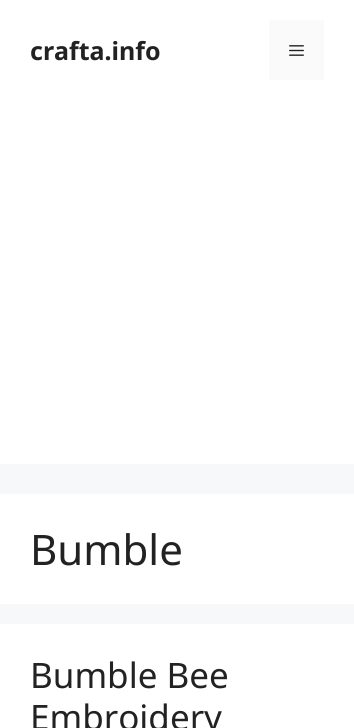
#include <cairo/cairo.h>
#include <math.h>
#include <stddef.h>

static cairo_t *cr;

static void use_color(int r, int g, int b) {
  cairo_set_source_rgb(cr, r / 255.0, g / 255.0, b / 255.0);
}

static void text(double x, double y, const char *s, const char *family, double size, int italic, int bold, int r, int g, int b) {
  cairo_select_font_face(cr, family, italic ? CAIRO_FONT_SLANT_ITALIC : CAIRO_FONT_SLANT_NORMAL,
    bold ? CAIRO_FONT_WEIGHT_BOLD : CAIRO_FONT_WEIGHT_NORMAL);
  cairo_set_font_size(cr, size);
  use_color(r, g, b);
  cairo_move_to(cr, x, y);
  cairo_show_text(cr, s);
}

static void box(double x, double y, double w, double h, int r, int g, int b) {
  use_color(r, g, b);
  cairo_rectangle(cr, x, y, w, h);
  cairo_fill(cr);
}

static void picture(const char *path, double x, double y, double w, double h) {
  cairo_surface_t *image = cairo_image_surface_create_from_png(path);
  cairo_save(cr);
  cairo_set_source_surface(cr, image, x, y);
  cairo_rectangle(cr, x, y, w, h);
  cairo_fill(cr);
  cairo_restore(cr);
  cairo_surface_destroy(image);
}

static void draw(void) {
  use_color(247, 248, 249);
  cairo_paint(cr);
  box(0, 0, 354, 464, 255, 255, 255);
  box(269, 20, 55, 60, 250, 250, 250);
  picture("img_01.png", 289, 45, 15, 11);
  box(0, 494, 354, 110, 255, 255, 255);
  box(0, 624, 354, 104, 255, 255, 255);
  text(30, 60, "crafta.info", "Noto Sans", 25, 0, 1, 34, 34, 34);
  text(30, 565, "Bumble", "Noto Sans", 42, 0, 0, 34, 34, 34);
  text(30, 688, "Bumble Bee", "Noto Sans", 35, 0, 0, 34, 34, 34);
  text(30, 730, "Embroidery", "Noto Sans", 35, 0, 0, 34, 34, 34);
}

int main(void) {
  cairo_surface_t *surface = cairo_image_surface_create(CAIRO_FORMAT_RGB24, 354, 728);
  cr = cairo_create(surface);
  cairo_font_options_t *options = cairo_font_options_create();
  cairo_font_options_set_hint_metrics(options, CAIRO_HINT_METRICS_OFF);
  cairo_font_options_set_hint_style(options, CAIRO_HINT_STYLE_NONE);
  cairo_set_font_options(cr, options);
  cairo_set_miter_limit(cr, 4);
  draw();
  cairo_surface_write_to_png(surface, "out.png");
  cairo_font_options_destroy(options);
  cairo_destroy(cr);
  cairo_surface_destroy(surface);
  return 0;
}
